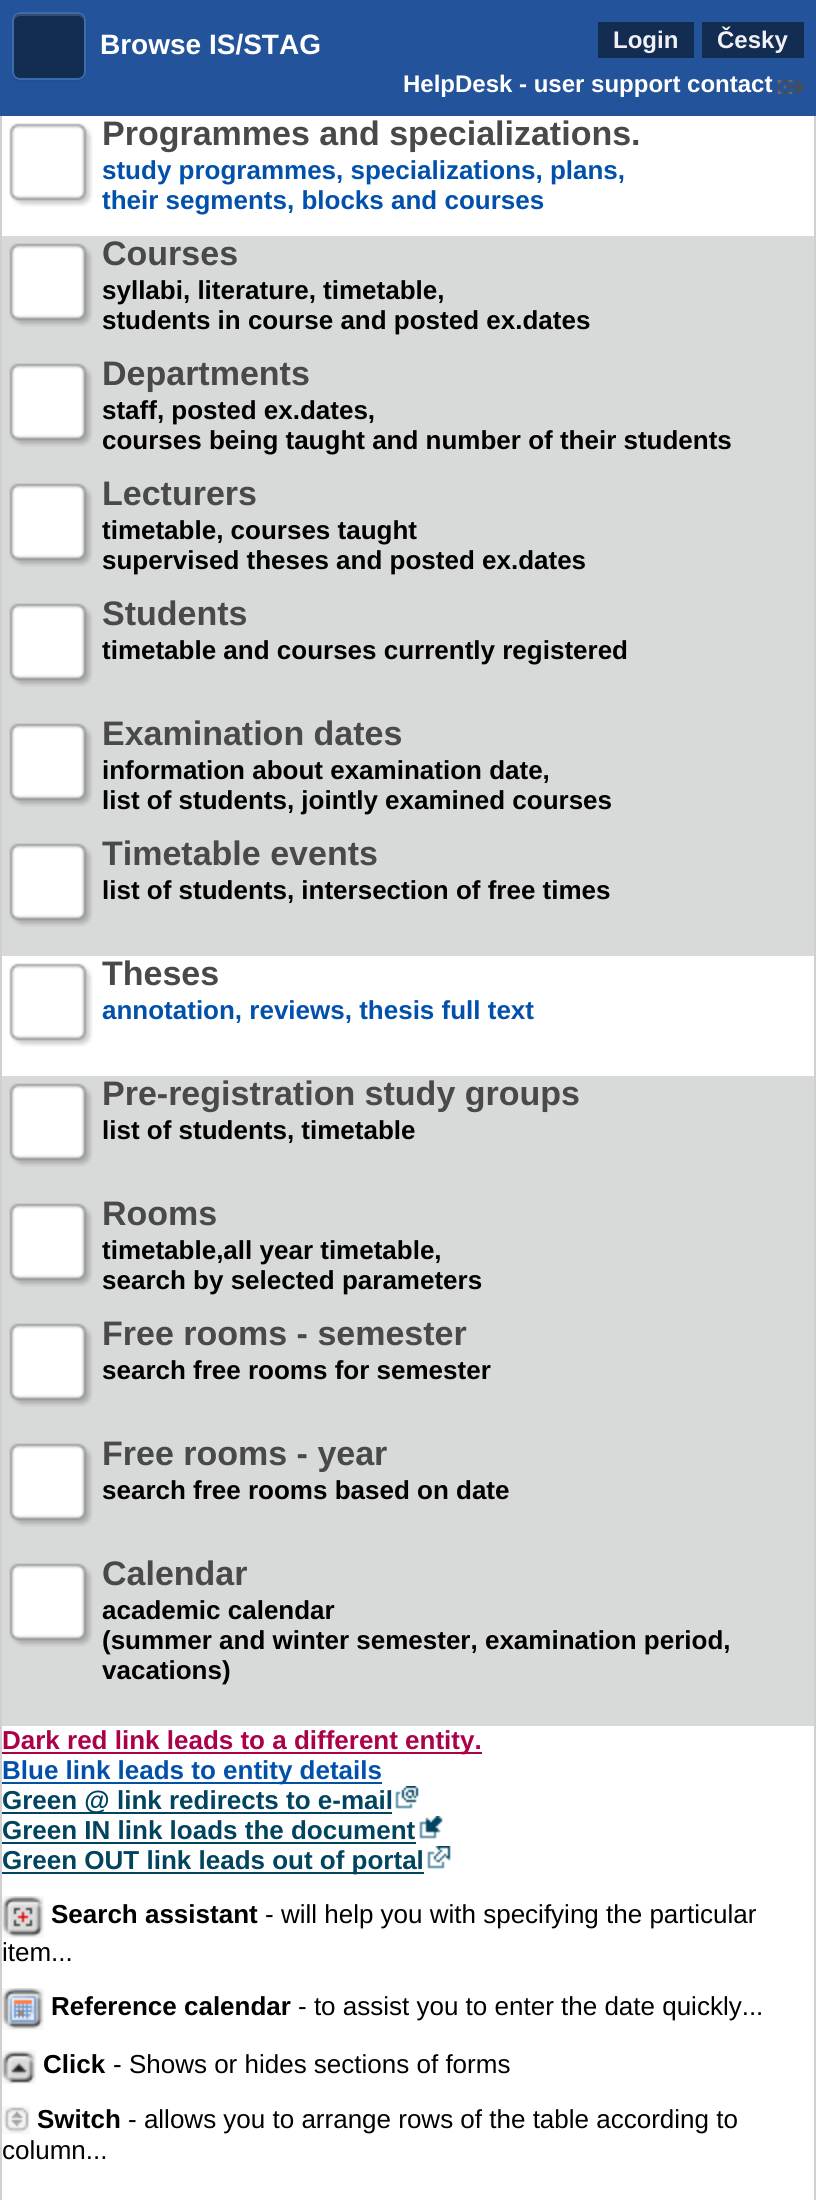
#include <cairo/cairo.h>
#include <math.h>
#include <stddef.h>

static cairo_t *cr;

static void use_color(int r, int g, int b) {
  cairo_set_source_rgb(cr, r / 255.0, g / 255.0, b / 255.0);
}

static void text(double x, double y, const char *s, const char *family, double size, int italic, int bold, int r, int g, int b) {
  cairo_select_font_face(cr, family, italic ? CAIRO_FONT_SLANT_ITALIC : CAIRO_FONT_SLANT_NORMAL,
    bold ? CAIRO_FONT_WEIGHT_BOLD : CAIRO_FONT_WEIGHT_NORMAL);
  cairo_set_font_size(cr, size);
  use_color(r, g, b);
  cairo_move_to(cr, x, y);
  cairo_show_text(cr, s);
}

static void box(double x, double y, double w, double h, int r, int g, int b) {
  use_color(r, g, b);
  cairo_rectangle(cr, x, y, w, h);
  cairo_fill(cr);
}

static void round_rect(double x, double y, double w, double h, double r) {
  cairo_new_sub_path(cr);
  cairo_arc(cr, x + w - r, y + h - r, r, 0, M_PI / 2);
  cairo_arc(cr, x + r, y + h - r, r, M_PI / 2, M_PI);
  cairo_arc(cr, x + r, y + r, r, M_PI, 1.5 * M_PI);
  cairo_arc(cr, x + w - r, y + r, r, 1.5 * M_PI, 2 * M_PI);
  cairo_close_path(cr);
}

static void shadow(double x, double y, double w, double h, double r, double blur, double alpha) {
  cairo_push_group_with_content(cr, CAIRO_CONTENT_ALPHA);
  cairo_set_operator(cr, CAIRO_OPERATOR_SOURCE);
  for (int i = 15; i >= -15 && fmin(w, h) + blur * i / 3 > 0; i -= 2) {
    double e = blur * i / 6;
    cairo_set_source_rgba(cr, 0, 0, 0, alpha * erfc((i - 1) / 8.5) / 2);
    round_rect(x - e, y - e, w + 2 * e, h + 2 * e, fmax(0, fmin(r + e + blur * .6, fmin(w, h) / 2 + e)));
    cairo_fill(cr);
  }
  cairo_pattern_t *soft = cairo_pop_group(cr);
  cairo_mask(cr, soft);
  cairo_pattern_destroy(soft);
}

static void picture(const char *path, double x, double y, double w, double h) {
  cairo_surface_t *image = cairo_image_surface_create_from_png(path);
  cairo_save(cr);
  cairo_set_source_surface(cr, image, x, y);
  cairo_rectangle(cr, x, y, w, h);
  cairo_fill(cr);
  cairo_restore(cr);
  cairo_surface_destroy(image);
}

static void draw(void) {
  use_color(255, 255, 255);
  cairo_paint(cr);
  cairo_rectangle(cr, 1, 57, 814, 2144);
  use_color(208, 208, 208);
  cairo_stroke(cr);
  box(0, 0, 816, 116, 35, 84, 155);
  use_color(0, 0, 0);
  shadow(12, 14, 74, 68, 8, 1, 0.07);
  use_color(19, 45, 82);
  round_rect(12, 12, 74, 68, 8);
  cairo_fill(cr);
  use_color(54, 77, 108);
  cairo_new_path(cr);
  cairo_move_to(cr, 20, 16);
  cairo_line_to(cr, 78, 16);
  cairo_curve_to(cr, 81, 16, 84, 19, 84, 22);
  cairo_curve_to(cr, 84, 12, 77, 14, 68, 14);
  cairo_line_to(cr, 30, 14);
  cairo_curve_to(cr, 21, 14, 14, 12, 14, 22);
  cairo_curve_to(cr, 14, 19, 17, 16, 20, 16);
  cairo_close_path(cr);
  cairo_fill(cr);
  round_rect(13, 13, 72, 66, 7);
  use_color(60, 107, 174);
  cairo_stroke(cr);
  box(598, 22, 96, 36, 19, 45, 82);
  box(702, 22, 102, 36, 19, 45, 82);
  picture("img_01.png", 778, 80, 26, 14);
  picture("img_02.png", 9, 123, 84, 84);
  box(2, 236, 812, 720, 216, 217, 217);
  picture("img_03.png", 9, 243, 84, 84);
  picture("img_03.png", 9, 363, 84, 84);
  picture("img_03.png", 9, 483, 84, 84);
  picture("img_03.png", 9, 603, 84, 84);
  picture("img_03.png", 9, 723, 84, 84);
  picture("img_03.png", 9, 843, 84, 84);
  picture("img_02.png", 9, 963, 84, 84);
  box(2, 1076, 812, 650, 216, 217, 217);
  picture("img_03.png", 9, 1083, 84, 84);
  picture("img_03.png", 9, 1203, 84, 84);
  picture("img_03.png", 9, 1323, 84, 84);
  picture("img_03.png", 9, 1443, 84, 84);
  picture("img_03.png", 9, 1563, 84, 84);
  box(2, 1752, 480, 2, 172, 1, 73);
  box(2, 1782, 380, 2, 1, 81, 172);
  box(2, 1812, 390, 2, 1, 68, 95);
  picture("img_04.png", 395, 1786, 24, 23);
  box(2, 1842, 414, 2, 1, 68, 95);
  picture("img_05.png", 419, 1816, 24, 23);
  box(2, 1872, 422, 2, 1, 68, 95);
  picture("img_06.png", 427, 1846, 24, 23);
  picture("img_07.png", 2, 1896, 42, 42);
  picture("img_08.png", 2, 1988, 42, 42);
  picture("img_09.png", 2, 2050, 34, 34);
  picture("img_10.png", 2, 2106, 28, 28);
  text(100, 54, "Browse IS/STAG", "Liberation Sans", 28, 0, 1, 255, 255, 255);
  text(613, 48, "Login", "Liberation Sans", 24, 0, 1, 240, 240, 245);
  text(717, 48, "Česky", "Liberation Sans", 24, 0, 1, 240, 240, 245);
  text(403, 92, "HelpDesk - user support contact", "Liberation Sans", 24, 0, 1, 255, 255, 255);
  text(102, 145, "Programmes and specializations.", "Liberation Sans", 34, 0, 1, 73, 73, 73);
  text(102, 179, "study programmes, specializations, plans,", "Liberation Sans", 26, 0, 1, 1, 81, 172);
  text(102, 209, "their segments, blocks and courses", "Liberation Sans", 26, 0, 1, 1, 81, 172);
  text(102, 265, "Courses", "Liberation Sans", 34, 0, 1, 73, 73, 73);
  text(102, 299, "syllabi, literature, timetable,", "Liberation Sans", 26, 0, 1, 0, 0, 0);
  text(102, 329, "students in course and posted ex.dates", "Liberation Sans", 26, 0, 1, 0, 0, 0);
  text(102, 385, "Departments", "Liberation Sans", 34, 0, 1, 73, 73, 73);
  text(102, 419, "staff, posted ex.dates,", "Liberation Sans", 26, 0, 1, 0, 0, 0);
  text(102, 449, "courses being taught and number of their students", "Liberation Sans", 26, 0, 1, 0, 0, 0);
  text(102, 505, "Lecturers", "Liberation Sans", 34, 0, 1, 73, 73, 73);
  text(102, 539, "timetable, courses taught", "Liberation Sans", 26, 0, 1, 0, 0, 0);
  text(102, 569, "supervised theses and posted ex.dates", "Liberation Sans", 26, 0, 1, 0, 0, 0);
  text(102, 625, "Students", "Liberation Sans", 34, 0, 1, 73, 73, 73);
  text(102, 659, "timetable and courses currently registered", "Liberation Sans", 26, 0, 1, 0, 0, 0);
  text(102, 745, "Examination dates", "Liberation Sans", 34, 0, 1, 73, 73, 73);
  text(102, 779, "information about examination date,", "Liberation Sans", 26, 0, 1, 0, 0, 0);
  text(102, 809, "list of students, jointly examined courses", "Liberation Sans", 26, 0, 1, 0, 0, 0);
  text(102, 865, "Timetable events", "Liberation Sans", 34, 0, 1, 73, 73, 73);
  text(102, 899, "list of students, intersection of free times", "Liberation Sans", 26, 0, 1, 0, 0, 0);
  text(102, 985, "Theses", "Liberation Sans", 34, 0, 1, 73, 73, 73);
  text(102, 1019, "annotation, reviews, thesis full text", "Liberation Sans", 26, 0, 1, 1, 81, 172);
  text(102, 1105, "Pre-registration study groups", "Liberation Sans", 34, 0, 1, 73, 73, 73);
  text(102, 1139, "list of students, timetable", "Liberation Sans", 26, 0, 1, 0, 0, 0);
  text(102, 1225, "Rooms", "Liberation Sans", 34, 0, 1, 73, 73, 73);
  text(102, 1259, "timetable,all year timetable,", "Liberation Sans", 26, 0, 1, 0, 0, 0);
  text(102, 1289, "search by selected parameters", "Liberation Sans", 26, 0, 1, 0, 0, 0);
  text(102, 1345, "Free rooms - semester", "Liberation Sans", 34, 0, 1, 73, 73, 73);
  text(102, 1379, "search free rooms for semester", "Liberation Sans", 26, 0, 1, 0, 0, 0);
  text(102, 1465, "Free rooms - year", "Liberation Sans", 34, 0, 1, 73, 73, 73);
  text(102, 1499, "search free rooms based on date", "Liberation Sans", 26, 0, 1, 0, 0, 0);
  text(102, 1585, "Calendar", "Liberation Sans", 34, 0, 1, 73, 73, 73);
  text(102, 1619, "academic calendar", "Liberation Sans", 26, 0, 1, 0, 0, 0);
  text(102, 1649, "(summer and winter semester, examination period,", "Liberation Sans", 26, 0, 1, 0, 0, 0);
  text(102, 1679, "vacations)", "Liberation Sans", 26, 0, 1, 0, 0, 0);
  text(2, 1749, "Dark red link leads to a different entity.", "Liberation Sans", 26, 0, 1, 172, 1, 73);
  text(2, 1779, "Blue link leads to entity details", "Liberation Sans", 26, 0, 1, 1, 81, 172);
  text(2, 1809, "Green @ link redirects to e-mail", "Liberation Sans", 26, 0, 1, 1, 68, 95);
  text(2, 1839, "Green IN link loads the document", "Liberation Sans", 26, 0, 1, 1, 68, 95);
  text(2, 1869, "Green OUT link leads out of portal", "Liberation Sans", 26, 0, 1, 1, 68, 95);
  text(51, 1923, "Search assistant", "Liberation Sans", 26, 0, 1, 0, 0, 0);
  text(265, 1923, "- will help you with specifying the particular", "Liberation Sans", 26, 0, 0, 0, 0, 0);
  text(2, 1961, "item...", "Liberation Sans", 26, 0, 0, 0, 0, 0);
  text(51, 2015, "Reference calendar", "Liberation Sans", 26, 0, 1, 0, 0, 0);
  text(298, 2015, "- to assist you to enter the date quickly...", "Liberation Sans", 26, 0, 0, 0, 0, 0);
  text(43, 2073, "Click", "Liberation Sans", 26, 0, 1, 0, 0, 0);
  text(113, 2073, "- Shows or hides sections of forms", "Liberation Sans", 26, 0, 0, 0, 0, 0);
  text(37, 2128, "Switch", "Liberation Sans", 26, 0, 1, 0, 0, 0);
  text(128, 2128, "- allows you to arrange rows of the table according to", "Liberation Sans", 26, 0, 0, 0, 0, 0);
  text(2, 2159, "column...", "Liberation Sans", 26, 0, 0, 0, 0, 0);
}

int main(void) {
  cairo_surface_t *surface = cairo_image_surface_create(CAIRO_FORMAT_RGB24, 816, 2200);
  cr = cairo_create(surface);
  cairo_font_options_t *options = cairo_font_options_create();
  cairo_font_options_set_hint_metrics(options, CAIRO_HINT_METRICS_OFF);
  cairo_font_options_set_hint_style(options, CAIRO_HINT_STYLE_NONE);
  cairo_set_font_options(cr, options);
  cairo_set_miter_limit(cr, 4);
  draw();
  cairo_surface_write_to_png(surface, "out.png");
  cairo_font_options_destroy(options);
  cairo_destroy(cr);
  cairo_surface_destroy(surface);
  return 0;
}
